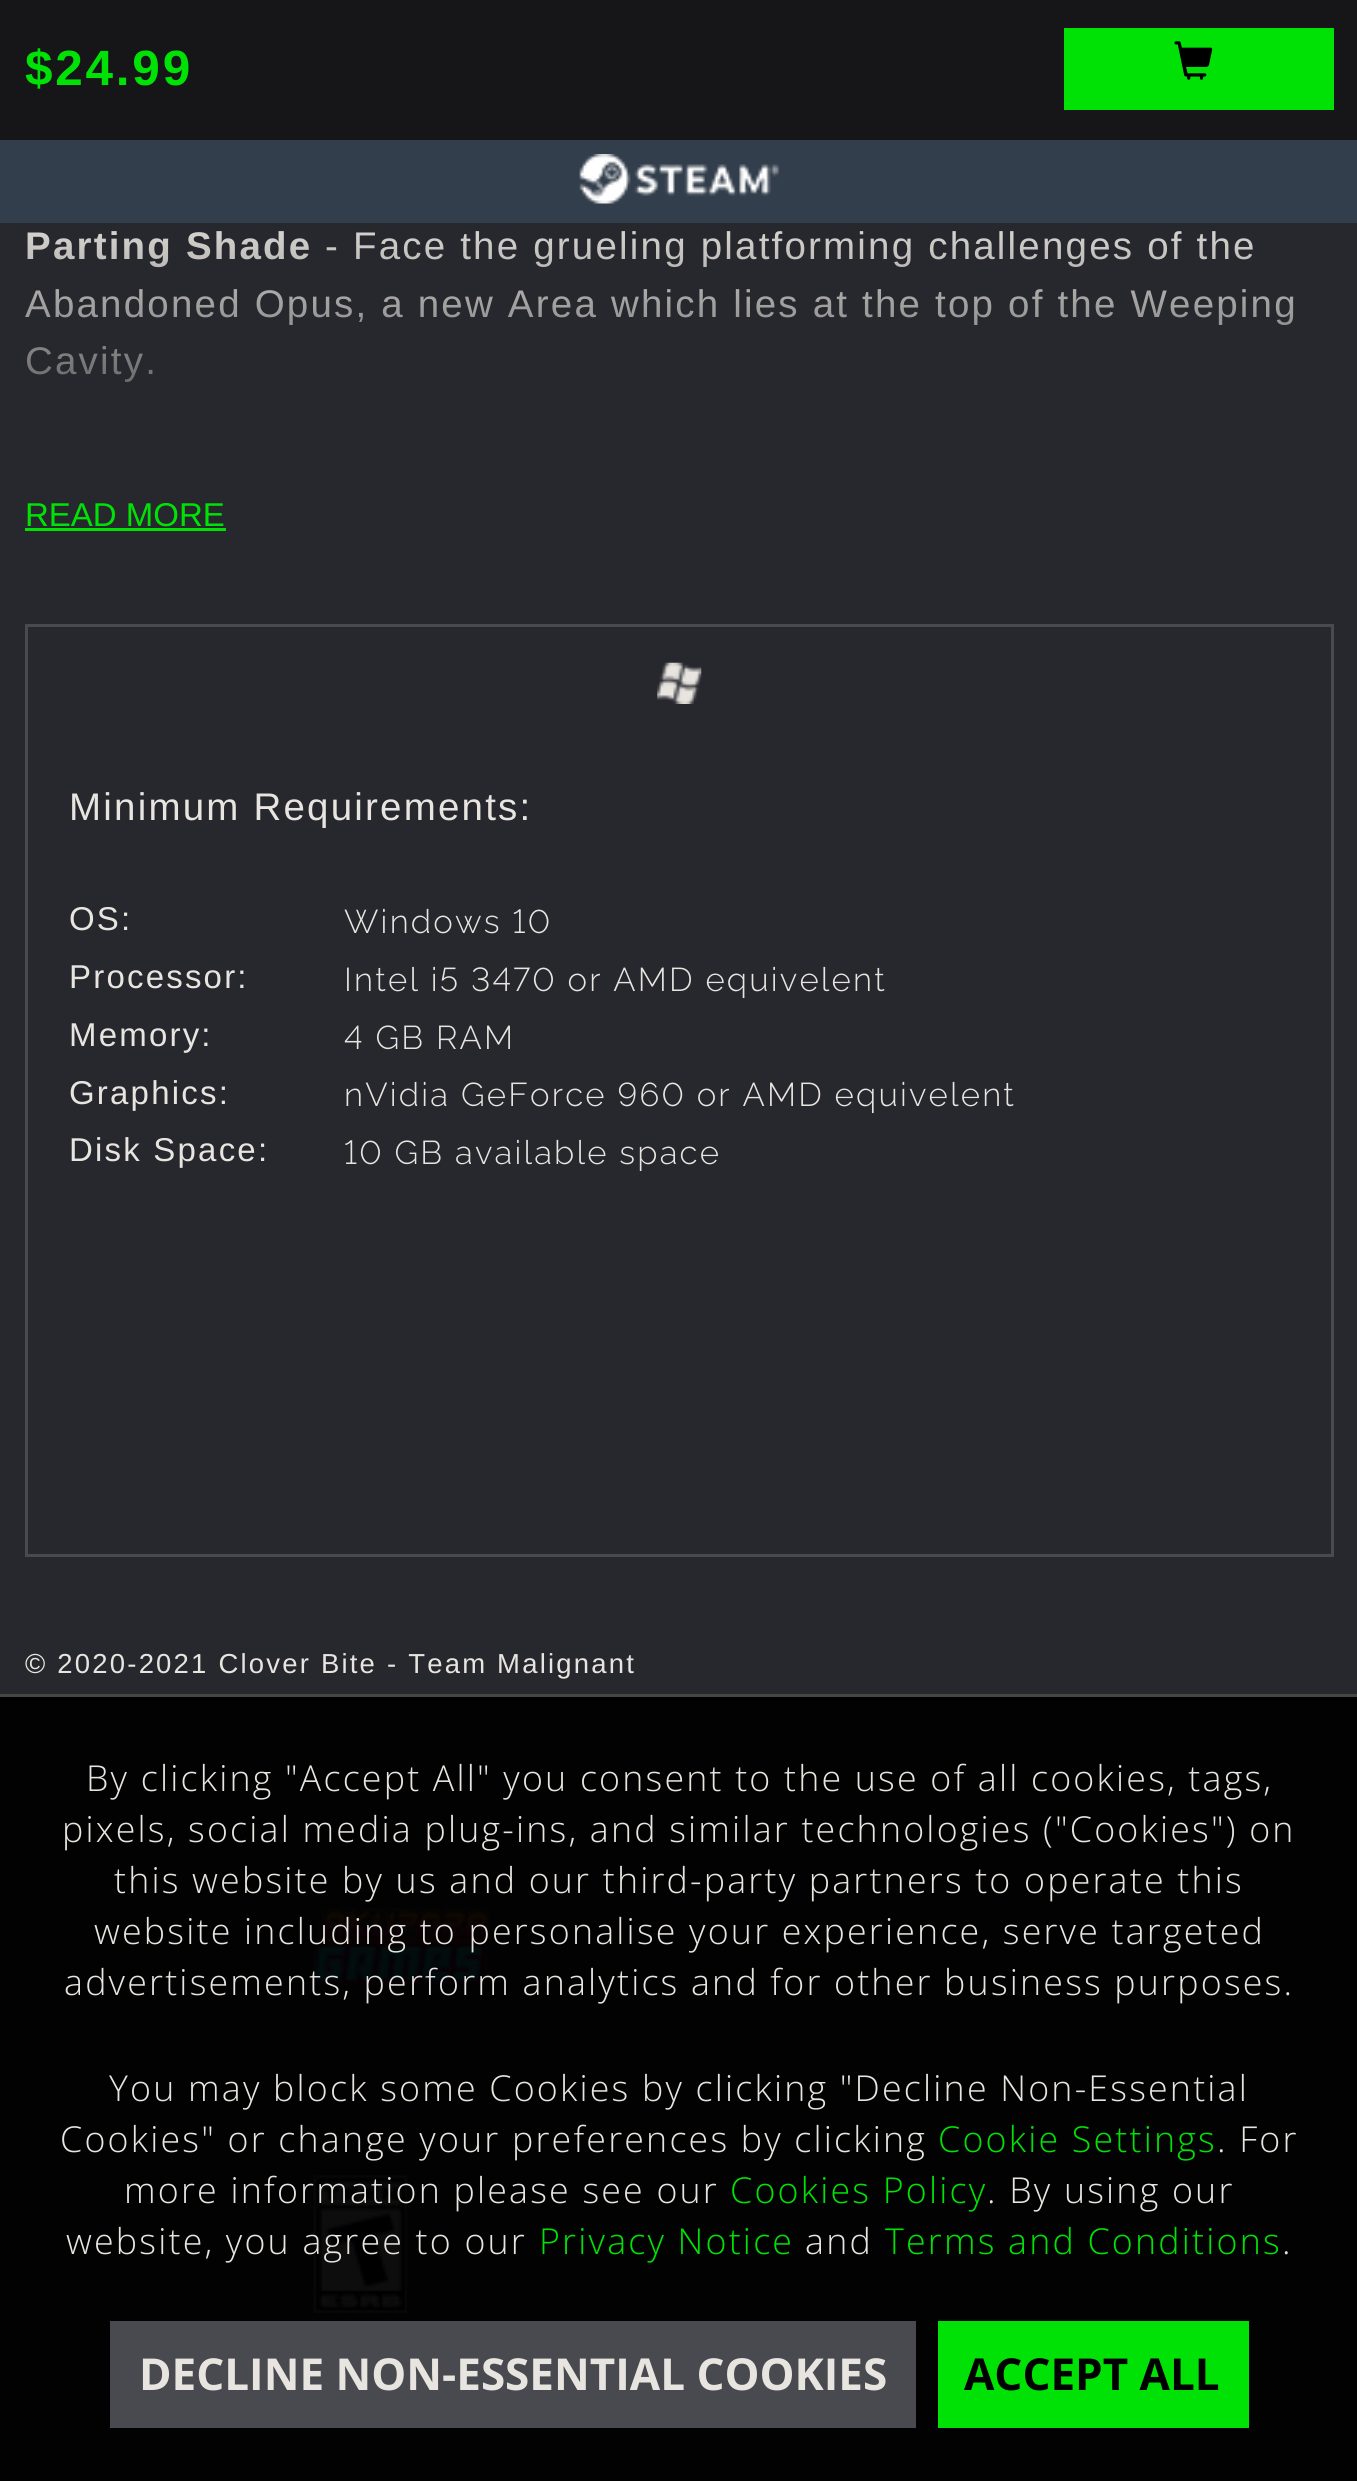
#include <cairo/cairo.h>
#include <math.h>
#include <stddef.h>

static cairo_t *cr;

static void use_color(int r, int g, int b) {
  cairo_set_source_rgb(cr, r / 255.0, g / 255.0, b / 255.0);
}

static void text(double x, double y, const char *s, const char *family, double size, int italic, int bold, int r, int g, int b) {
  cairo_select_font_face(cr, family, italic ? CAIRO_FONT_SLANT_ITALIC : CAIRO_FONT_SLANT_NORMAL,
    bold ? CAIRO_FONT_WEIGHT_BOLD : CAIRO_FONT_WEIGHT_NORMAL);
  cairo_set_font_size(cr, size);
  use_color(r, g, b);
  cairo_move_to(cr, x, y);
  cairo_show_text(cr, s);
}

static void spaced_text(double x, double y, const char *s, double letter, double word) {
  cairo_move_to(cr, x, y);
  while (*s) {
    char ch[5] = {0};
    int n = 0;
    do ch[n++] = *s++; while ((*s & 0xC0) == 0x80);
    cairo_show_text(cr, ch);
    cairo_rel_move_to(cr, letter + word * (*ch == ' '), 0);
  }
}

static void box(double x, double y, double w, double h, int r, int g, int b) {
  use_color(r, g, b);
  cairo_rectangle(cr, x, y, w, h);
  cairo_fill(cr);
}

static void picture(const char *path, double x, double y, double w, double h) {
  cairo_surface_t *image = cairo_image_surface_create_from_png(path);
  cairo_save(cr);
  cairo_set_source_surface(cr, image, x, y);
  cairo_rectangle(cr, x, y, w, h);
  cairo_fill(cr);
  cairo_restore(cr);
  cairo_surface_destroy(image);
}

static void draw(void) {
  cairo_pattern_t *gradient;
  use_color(39, 40, 46);
  cairo_paint(cr);
  box(0, 1697, 1357, 784, 2, 2, 2);
  box(0, 0, 1357, 140, 22, 22, 24);
  box(1064, 28, 270, 82, 0, 226, 5);
  picture("img_01.png", 1174, 41, 39, 39);
  box(0, 140, 1357, 83, 51, 62, 76);
  picture("img_02.png", 579, 154, 201, 50);
  box(25, 528, 201, 3, 0, 226, 5);
  box(25, 624, 1309, 3, 73, 74, 79);
  box(1331, 624, 3, 124, 73, 74, 79);
  box(25, 624, 3, 124, 73, 74, 79);
  picture("img_03.png", 657, 662, 45, 42);
  box(1331, 748, 3, 809, 73, 74, 79);
  box(25, 1554, 1309, 3, 73, 74, 79);
  box(25, 748, 3, 809, 73, 74, 79);
  picture("img_04.png", 313, 1908, 177, 78);
  picture("img_05.png", 313, 2175, 94, 138);
  box(0, 1694, 1357, 3, 71, 70, 69);
  box(110, 2321, 806, 107, 73, 74, 79);
  box(938, 2321, 311, 107, 0, 226, 5);
  cairo_select_font_face(cr, "Liberation Sans", CAIRO_FONT_SLANT_NORMAL, CAIRO_FONT_WEIGHT_BOLD);
  cairo_set_font_size(cr, 49.5);
  spaced_text(25, 85, "$24.99", 2.75, 0);
  cairo_set_font_size(cr, 38.5);
  use_color(232, 229, 224);
  spaced_text(25, 259, "Parting Shade", 2.2, 0);
  cairo_select_font_face(cr, "Liberation Sans", CAIRO_FONT_SLANT_NORMAL, CAIRO_FONT_WEIGHT_NORMAL);
  spaced_text(325, 259, "- Face the grueling platforming challenges of the", 2.2, 0);
  spaced_text(25, 317, "Abandoned Opus, a new Area which lies at the top of the Weeping", 2.2, 0);
  spaced_text(25, 374, "Cavity.", 2.2, 0);
  gradient = cairo_pattern_create_linear(679, -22, 679, 484);
  cairo_pattern_add_color_stop_rgba(gradient, 0, 0.153, 0.157, 0.18, 0);
  cairo_pattern_add_color_stop_rgba(gradient, 0.5, 0.153, 0.157, 0.18, 0.1);
  cairo_pattern_add_color_stop_rgba(gradient, 1, 0.153, 0.157, 0.18, 1);
  cairo_set_source(cr, gradient);
  cairo_pattern_destroy(gradient);
  cairo_rectangle(cr, 25, 231, 1268, 151);
  cairo_fill(cr);
  text(25, 526, "READ MORE", "Liberation Sans", 33, 0, 0, 0, 226, 5);
  cairo_set_font_size(cr, 38.5);
  use_color(232, 229, 224);
  spaced_text(69, 820, "Minimum Requirements:", 2.2, 0);
  cairo_set_font_size(cr, 33);
  spaced_text(69, 930, "OS:", 2.2, 0);
  cairo_select_font_face(cr, "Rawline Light", CAIRO_FONT_SLANT_NORMAL, CAIRO_FONT_WEIGHT_NORMAL);
  spaced_text(344, 933, "Windows 10", 2.2, 0);
  cairo_select_font_face(cr, "Liberation Sans", CAIRO_FONT_SLANT_NORMAL, CAIRO_FONT_WEIGHT_NORMAL);
  spaced_text(69, 988, "Processor:", 2.2, 0);
  cairo_select_font_face(cr, "Rawline Light", CAIRO_FONT_SLANT_NORMAL, CAIRO_FONT_WEIGHT_NORMAL);
  spaced_text(344, 991, "Intel i5 3470 or AMD equivelent", 2.2, 0);
  cairo_select_font_face(cr, "Liberation Sans", CAIRO_FONT_SLANT_NORMAL, CAIRO_FONT_WEIGHT_NORMAL);
  spaced_text(69, 1046, "Memory:", 2.2, 0);
  cairo_select_font_face(cr, "Rawline Light", CAIRO_FONT_SLANT_NORMAL, CAIRO_FONT_WEIGHT_NORMAL);
  spaced_text(344, 1049, "4 GB RAM", 2.2, 0);
  cairo_select_font_face(cr, "Liberation Sans", CAIRO_FONT_SLANT_NORMAL, CAIRO_FONT_WEIGHT_NORMAL);
  spaced_text(69, 1104, "Graphics:", 2.2, 0);
  cairo_select_font_face(cr, "Rawline Light", CAIRO_FONT_SLANT_NORMAL, CAIRO_FONT_WEIGHT_NORMAL);
  spaced_text(344, 1106, "nVidia GeForce 960 or AMD equivelent", 2.2, 0);
  cairo_select_font_face(cr, "Liberation Sans", CAIRO_FONT_SLANT_NORMAL, CAIRO_FONT_WEIGHT_NORMAL);
  spaced_text(69, 1161, "Disk Space:", 2.2, 0);
  cairo_select_font_face(cr, "Rawline Light", CAIRO_FONT_SLANT_NORMAL, CAIRO_FONT_WEIGHT_NORMAL);
  spaced_text(344, 1164, "10 GB available space", 2.2, 0);
  cairo_select_font_face(cr, "Liberation Sans", CAIRO_FONT_SLANT_NORMAL, CAIRO_FONT_WEIGHT_NORMAL);
  cairo_set_font_size(cr, 27.5);
  spaced_text(25, 1673, "© 2020-2021 Clover Bite - Team Malignant", 2.2, 0);
  cairo_select_font_face(cr, "Open Sans Light", CAIRO_FONT_SLANT_NORMAL, CAIRO_FONT_WEIGHT_NORMAL);
  cairo_set_font_size(cr, 35.75);
  spaced_text(86, 1791, "By clicking \"Accept All\" you consent to the use of all cookies, tags,", 2.2, 0);
  spaced_text(62, 1842, "pixels, social media plug-ins, and similar technologies (\"Cookies\") on", 2.2, 0);
  spaced_text(114, 1893, "this website by us and our third-party partners to operate this", 2.2, 0);
  spaced_text(94, 1944, "website including to personalise your experience, serve targeted", 2.2, 0);
  spaced_text(64, 1995, "advertisements, perform analytics and for other business purposes.", 2.2, 0);
  spaced_text(109, 2101, "You may block some Cookies by clicking \"Decline Non-Essential", 2.2, 0);
  spaced_text(60, 2152, "Cookies\" or change your preferences by clicking", 2.2, 0);
  use_color(0, 226, 5);
  spaced_text(938, 2152, "Cookie Settings", 2.2, 0);
  use_color(232, 229, 224);
  spaced_text(1217, 2152, ". For", 2.2, 0);
  spaced_text(124, 2203, "more information please see our", 2.2, 0);
  use_color(0, 226, 5);
  spaced_text(730, 2203, "Cookies Policy", 2.2, 0);
  use_color(232, 229, 224);
  spaced_text(987, 2203, ". By using our", 2.2, 0);
  spaced_text(66, 2254, "website, you agree to our", 2.2, 0);
  use_color(0, 226, 5);
  spaced_text(539, 2254, "Privacy Notice", 2.2, 0);
  use_color(232, 229, 224);
  spaced_text(805, 2254, "and", 2.2, 0);
  use_color(0, 226, 5);
  spaced_text(885, 2254, "Terms and Conditions", 2.2, 0);
  use_color(232, 229, 224);
  spaced_text(1282, 2254, ".", 2.2, 0);
  text(139, 2390, "DECLINE NON-ESSENTIAL COOKIES", "Open Sans", 44, 0, 1, 232, 229, 224);
  text(964, 2390, "ACCEPT ALL", "Open Sans", 44, 0, 1, 0, 0, 0);
}

int main(void) {
  cairo_surface_t *surface = cairo_image_surface_create(CAIRO_FORMAT_RGB24, 1357, 2481);
  cr = cairo_create(surface);
  cairo_font_options_t *options = cairo_font_options_create();
  cairo_font_options_set_hint_metrics(options, CAIRO_HINT_METRICS_OFF);
  cairo_font_options_set_hint_style(options, CAIRO_HINT_STYLE_NONE);
  cairo_set_font_options(cr, options);
  cairo_set_miter_limit(cr, 4);
  draw();
  cairo_surface_write_to_png(surface, "out.png");
  cairo_font_options_destroy(options);
  cairo_destroy(cr);
  cairo_surface_destroy(surface);
  return 0;
}
